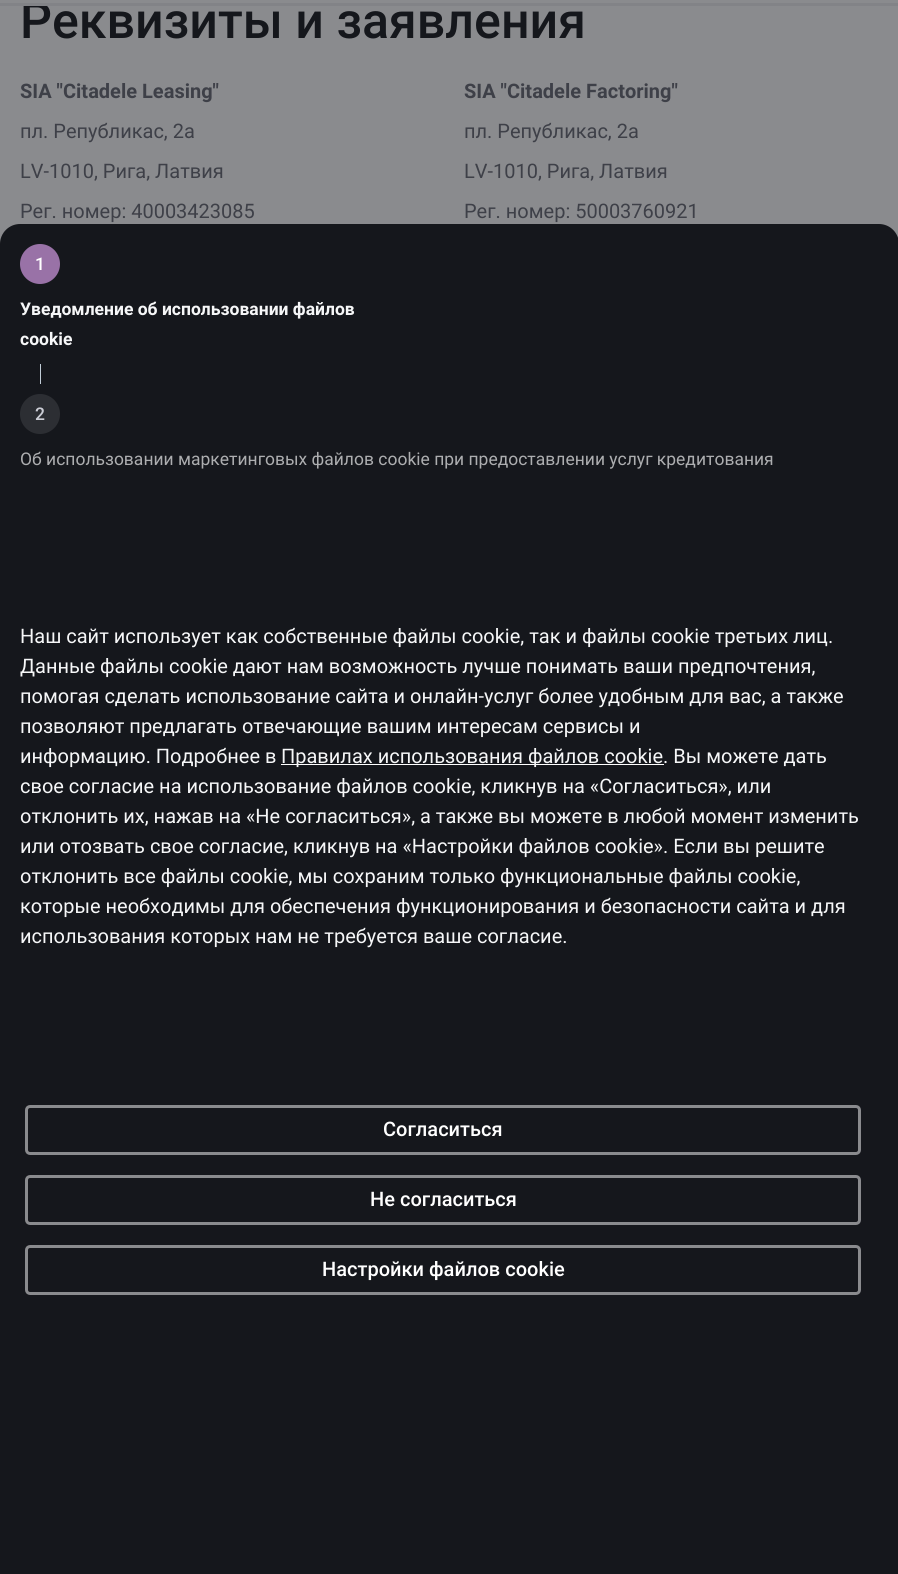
#include <cairo/cairo.h>
#include <math.h>
#include <stddef.h>

static cairo_t *cr;

static void use_color(int r, int g, int b) {
  cairo_set_source_rgb(cr, r / 255.0, g / 255.0, b / 255.0);
}

static void text(double x, double y, const char *s, const char *family, double size, int italic, int bold, int r, int g, int b) {
  cairo_select_font_face(cr, family, italic ? CAIRO_FONT_SLANT_ITALIC : CAIRO_FONT_SLANT_NORMAL,
    bold ? CAIRO_FONT_WEIGHT_BOLD : CAIRO_FONT_WEIGHT_NORMAL);
  cairo_set_font_size(cr, size);
  use_color(r, g, b);
  cairo_move_to(cr, x, y);
  cairo_show_text(cr, s);
}

static void box(double x, double y, double w, double h, int r, int g, int b) {
  use_color(r, g, b);
  cairo_rectangle(cr, x, y, w, h);
  cairo_fill(cr);
}

static void round_rect(double x, double y, double w, double h, double r) {
  cairo_new_sub_path(cr);
  cairo_arc(cr, x + w - r, y + h - r, r, 0, M_PI / 2);
  cairo_arc(cr, x + r, y + h - r, r, M_PI / 2, M_PI);
  cairo_arc(cr, x + r, y + r, r, M_PI, 1.5 * M_PI);
  cairo_arc(cr, x + w - r, y + r, r, 1.5 * M_PI, 2 * M_PI);
  cairo_close_path(cr);
}

static void draw(void) {
  use_color(138, 139, 142);
  cairo_paint(cr);
  use_color(21, 23, 28);
  cairo_new_path(cr);
  cairo_move_to(cr, 20, 224);
  cairo_line_to(cr, 879, 224);
  cairo_curve_to(cr, 890, 224, 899, 233, 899, 244);
  cairo_line_to(cr, 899, 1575);
  cairo_line_to(cr, 0, 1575);
  cairo_line_to(cr, 0, 244);
  cairo_curve_to(cr, 0, 233, 9, 224, 20, 224);
  cairo_close_path(cr);
  cairo_fill(cr);
  use_color(153, 114, 167);
  cairo_arc(cr, 40, 264, 20, 0, 2 * M_PI);
  cairo_fill(cr);
  box(40, 364, 1, 20, 193, 205, 215);
  use_color(44, 46, 51);
  cairo_arc(cr, 40, 414, 20, 0, 2 * M_PI);
  cairo_fill(cr);
  box(281, 764, 383, 1, 255, 255, 255);
  round_rect(26.5, 1106.5, 833, 47, 3.5);
  use_color(138, 139, 142);
  cairo_set_line_width(cr, 3);
  cairo_stroke(cr);
  round_rect(26.5, 1176.5, 833, 47, 3.5);
  cairo_stroke(cr);
  round_rect(26.5, 1246.5, 833, 47, 3.5);
  cairo_stroke(cr);
  text(20, 38, "Реквизиты и заявления", "Roboto Medium", 50, 0, 0, 21, 23, 28);
  box(0, 3, 898, 3, 130, 131, 135);
  box(23, 2, 19, 1, 138, 139, 142);
  text(20, 98, "SIA \"Citadele Leasing\"", "Roboto", 20, 0, 1, 62, 64, 72);
  text(20, 138, "пл. Републикас, 2а", "Roboto", 20, 0, 0, 62, 64, 72);
  text(20, 178, "LV-1010, Рига, Латвия", "Roboto", 20, 0, 0, 62, 64, 72);
  text(20, 218, "Рег. номер: 40003423085", "Roboto", 20, 0, 0, 62, 64, 72);
  text(464, 98, "SIA \"Citadele Factoring\"", "Roboto", 20, 0, 1, 62, 64, 72);
  text(464, 138, "пл. Републикас, 2а", "Roboto", 20, 0, 0, 62, 64, 72);
  text(464, 178, "LV-1010, Рига, Латвия", "Roboto", 20, 0, 0, 62, 64, 72);
  text(464, 218, "Рег. номер: 50003760921", "Roboto", 20, 0, 0, 62, 64, 72);
  text(35, 270, "1", "Roboto Medium", 17.5, 0, 0, 255, 255, 255);
  text(20, 315, "Уведомление об использовании файлов", "Roboto", 17.5, 0, 1, 246, 247, 248);
  text(20, 345, "cookie", "Roboto", 17.5, 0, 1, 246, 247, 248);
  text(35, 420, "2", "Roboto Medium", 17.5, 0, 0, 203, 205, 213);
  text(20, 465, "Об использовании маркетинговых файлов cookie при предоставлении услуг кредитования", "Roboto", 17.5, 0, 0, 173, 174, 176);
  text(20, 643, "Наш сайт использует как собственные файлы cookie, так и файлы cookie третьих лиц.", "Roboto", 20, 0, 0, 246, 247, 248);
  text(20, 673, "Данные файлы cookie дают нам возможность лучше понимать ваши предпочтения,", "Roboto", 20, 0, 0, 246, 247, 248);
  text(20, 703, "помогая сделать использование сайта и онлайн-услуг более удобным для вас, а также", "Roboto", 20, 0, 0, 246, 247, 248);
  text(20, 733, "позволяют предлагать отвечающие вашим интересам сервисы и", "Roboto", 20, 0, 0, 246, 247, 248);
  text(20, 763, "информацию. Подробнее в", "Roboto", 20, 0, 0, 246, 247, 248);
  text(281, 763, "Правилах использования файлов cookie. Вы можете дать", "Roboto", 20, 0, 0, 246, 247, 248);
  text(20, 793, "свое согласие на использование файлов cookie, кликнув на «Согласиться», или", "Roboto", 20, 0, 0, 246, 247, 248);
  text(20, 823, "отклонить их, нажав на «Не согласиться», а также вы можете в любой момент изменить", "Roboto", 20, 0, 0, 246, 247, 248);
  text(20, 853, "или отозвать свое согласие, кликнув на «Настройки файлов cookie». Если вы решите", "Roboto", 20, 0, 0, 246, 247, 248);
  text(20, 883, "отклонить все файлы cookie, мы сохраним только функциональные файлы cookie,", "Roboto", 20, 0, 0, 246, 247, 248);
  text(20, 913, "которые необходимы для обеспечения функционирования и безопасности сайта и для", "Roboto", 20, 0, 0, 246, 247, 248);
  text(20, 943, "использования которых нам не требуется ваше согласие.", "Roboto", 20, 0, 0, 246, 247, 248);
  text(383, 1136, "Согласиться", "Roboto Medium", 20, 0, 0, 255, 255, 255);
  text(370, 1206, "Не согласиться", "Roboto Medium", 20, 0, 0, 255, 255, 255);
  text(322, 1276, "Настройки файлов cookie", "Roboto Medium", 20, 0, 0, 255, 255, 255);
}

int main(void) {
  cairo_surface_t *surface = cairo_image_surface_create(CAIRO_FORMAT_RGB24, 898, 1574);
  cr = cairo_create(surface);
  cairo_font_options_t *options = cairo_font_options_create();
  cairo_font_options_set_hint_metrics(options, CAIRO_HINT_METRICS_OFF);
  cairo_font_options_set_hint_style(options, CAIRO_HINT_STYLE_NONE);
  cairo_set_font_options(cr, options);
  cairo_set_miter_limit(cr, 4);
  draw();
  cairo_surface_write_to_png(surface, "out.png");
  cairo_font_options_destroy(options);
  cairo_destroy(cr);
  cairo_surface_destroy(surface);
  return 0;
}
